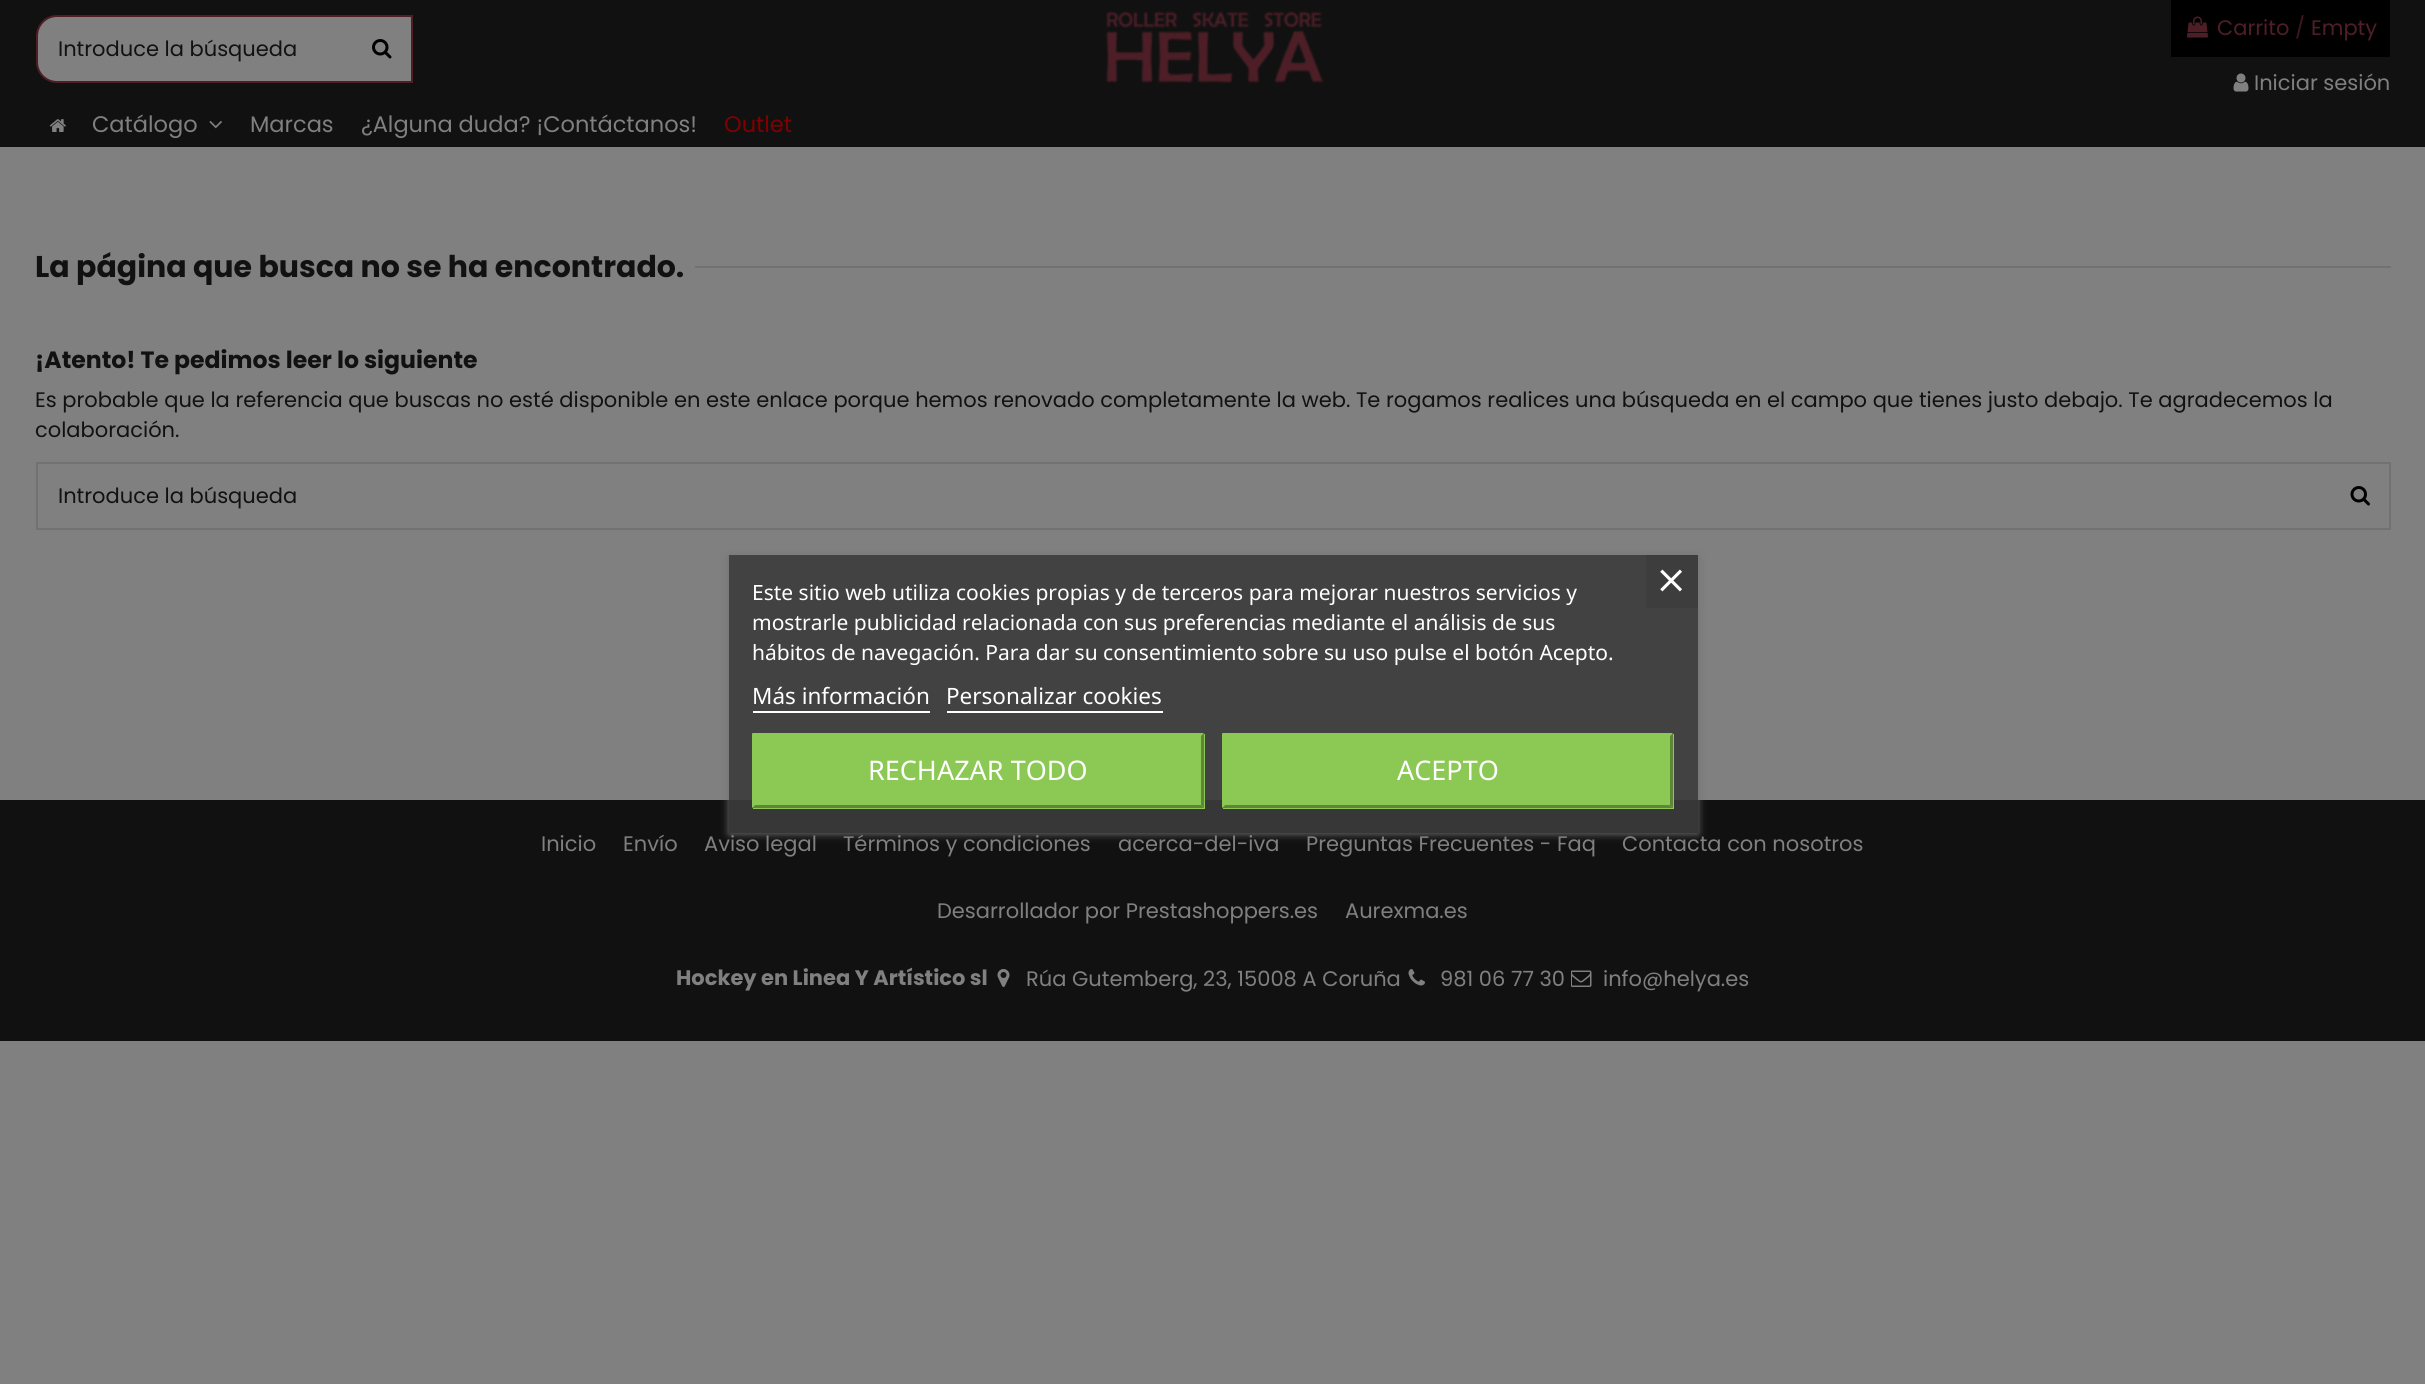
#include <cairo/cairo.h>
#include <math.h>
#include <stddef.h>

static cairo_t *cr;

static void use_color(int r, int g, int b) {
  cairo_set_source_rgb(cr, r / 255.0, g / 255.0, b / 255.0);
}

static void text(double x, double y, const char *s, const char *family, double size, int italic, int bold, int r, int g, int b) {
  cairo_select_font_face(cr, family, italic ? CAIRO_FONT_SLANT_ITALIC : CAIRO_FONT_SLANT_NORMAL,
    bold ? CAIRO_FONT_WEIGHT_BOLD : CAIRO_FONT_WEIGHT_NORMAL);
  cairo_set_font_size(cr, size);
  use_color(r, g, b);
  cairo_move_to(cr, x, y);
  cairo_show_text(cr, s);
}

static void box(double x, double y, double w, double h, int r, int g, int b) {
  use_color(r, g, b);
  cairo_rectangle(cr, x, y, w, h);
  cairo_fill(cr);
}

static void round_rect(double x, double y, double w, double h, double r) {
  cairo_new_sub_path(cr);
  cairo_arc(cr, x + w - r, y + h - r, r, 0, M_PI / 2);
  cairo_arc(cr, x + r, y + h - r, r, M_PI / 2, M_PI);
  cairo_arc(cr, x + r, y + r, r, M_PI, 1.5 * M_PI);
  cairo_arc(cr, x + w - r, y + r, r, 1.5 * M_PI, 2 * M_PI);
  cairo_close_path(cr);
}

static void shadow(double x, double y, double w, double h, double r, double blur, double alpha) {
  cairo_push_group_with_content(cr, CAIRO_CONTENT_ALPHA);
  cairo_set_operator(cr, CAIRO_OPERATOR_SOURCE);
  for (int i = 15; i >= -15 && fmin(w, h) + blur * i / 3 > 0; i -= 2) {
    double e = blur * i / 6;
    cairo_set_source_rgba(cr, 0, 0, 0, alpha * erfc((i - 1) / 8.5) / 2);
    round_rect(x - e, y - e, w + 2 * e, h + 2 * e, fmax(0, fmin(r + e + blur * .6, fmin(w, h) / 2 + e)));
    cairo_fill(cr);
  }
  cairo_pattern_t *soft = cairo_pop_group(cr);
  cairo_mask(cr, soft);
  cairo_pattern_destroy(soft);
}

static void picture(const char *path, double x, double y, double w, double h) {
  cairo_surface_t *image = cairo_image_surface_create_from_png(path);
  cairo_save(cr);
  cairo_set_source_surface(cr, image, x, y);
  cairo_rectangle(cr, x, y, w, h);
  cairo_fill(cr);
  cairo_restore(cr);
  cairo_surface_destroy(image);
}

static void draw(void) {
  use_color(128, 128, 128);
  cairo_paint(cr);
  box(0, 0, 2425, 147, 17, 17, 17);
  use_color(128, 128, 128);
  cairo_new_path(cr);
  cairo_move_to(cr, 57, 16);
  cairo_line_to(cr, 412, 16);
  cairo_line_to(cr, 412, 82);
  cairo_line_to(cr, 57, 82);
  cairo_curve_to(cr, 46, 82, 37, 73, 37, 62);
  cairo_line_to(cr, 37, 36);
  cairo_curve_to(cr, 37, 25, 46, 16, 57, 16);
  cairo_close_path(cr);
  cairo_fill_preserve(cr);
  use_color(79, 30, 39);
  cairo_stroke(cr);
  picture("img_01.png", 372, 39, 20, 20);
  picture("img_02.png", 1105, 11, 219, 72);
  box(2171, 0, 219, 57, 0, 0, 0);
  picture("img_03.png", 2187, 16, 21, 22);
  picture("img_04.png", 2233, 73, 16, 19);
  box(0, 800, 2425, 241, 17, 17, 17);
  cairo_save(cr);
  cairo_set_fill_rule(cr, CAIRO_FILL_RULE_EVEN_ODD);
  cairo_new_path(cr);
  cairo_move_to(cr, 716, 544);
  cairo_line_to(cr, 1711, 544);
  cairo_line_to(cr, 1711, 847);
  cairo_line_to(cr, 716, 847);
  cairo_close_path(cr);
  cairo_move_to(cr, 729, 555);
  cairo_line_to(cr, 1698, 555);
  cairo_line_to(cr, 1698, 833);
  cairo_line_to(cr, 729, 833);
  cairo_close_path(cr);
  cairo_clip(cr);
  use_color(112, 112, 112);
  shadow(729, 557, 969, 277, 0, 4, 1);
  cairo_restore(cr);
  cairo_set_source_rgba(cr, 0.231, 0.231, 0.231, 0.9);
  cairo_rectangle(cr, 729, 555, 969, 278);
  cairo_fill(cr);
  box(753, 711, 177, 2, 255, 255, 255);
  box(947, 711, 216, 2, 255, 255, 255);
  box(753, 734, 452, 75, 139, 201, 84);
  cairo_new_path(cr);
  cairo_move_to(cr, 752, 733);
  cairo_line_to(cr, 1204, 733);
  cairo_line_to(cr, 1201, 736);
  cairo_line_to(cr, 755, 736);
  cairo_close_path(cr);
  cairo_fill(cr);
  use_color(93, 134, 56);
  cairo_new_path(cr);
  cairo_move_to(cr, 1204, 733);
  cairo_line_to(cr, 1204, 808);
  cairo_line_to(cr, 1201, 805);
  cairo_line_to(cr, 1201, 736);
  cairo_close_path(cr);
  cairo_fill(cr);
  cairo_new_path(cr);
  cairo_move_to(cr, 1204, 808);
  cairo_line_to(cr, 752, 808);
  cairo_line_to(cr, 755, 805);
  cairo_line_to(cr, 1201, 805);
  cairo_close_path(cr);
  cairo_fill(cr);
  use_color(139, 201, 84);
  cairo_new_path(cr);
  cairo_move_to(cr, 752, 808);
  cairo_line_to(cr, 752, 733);
  cairo_line_to(cr, 755, 736);
  cairo_line_to(cr, 755, 805);
  cairo_close_path(cr);
  cairo_fill(cr);
  box(1223, 734, 451, 75, 139, 201, 84);
  cairo_new_path(cr);
  cairo_move_to(cr, 1222, 733);
  cairo_line_to(cr, 1673, 733);
  cairo_line_to(cr, 1670, 736);
  cairo_line_to(cr, 1225, 736);
  cairo_close_path(cr);
  cairo_fill(cr);
  use_color(93, 134, 56);
  cairo_new_path(cr);
  cairo_move_to(cr, 1673, 733);
  cairo_line_to(cr, 1673, 808);
  cairo_line_to(cr, 1670, 805);
  cairo_line_to(cr, 1670, 736);
  cairo_close_path(cr);
  cairo_fill(cr);
  cairo_new_path(cr);
  cairo_move_to(cr, 1673, 808);
  cairo_line_to(cr, 1222, 808);
  cairo_line_to(cr, 1225, 805);
  cairo_line_to(cr, 1670, 805);
  cairo_close_path(cr);
  cairo_fill(cr);
  use_color(139, 201, 84);
  cairo_new_path(cr);
  cairo_move_to(cr, 1222, 808);
  cairo_line_to(cr, 1222, 733);
  cairo_line_to(cr, 1225, 736);
  cairo_line_to(cr, 1225, 805);
  cairo_close_path(cr);
  cairo_fill(cr);
  box(1646, 555, 52, 53, 61, 61, 61);
  picture("img_05.png", 1660, 569, 22, 23);
  picture("img_06.png", 49, 119, 17, 13);
  picture("img_07.png", 209, 121, 13, 8);
  box(695, 266, 1696, 2, 114, 114, 114);
  cairo_rectangle(cr, 37, 463, 2353, 66);
  cairo_stroke(cr);
  picture("img_08.png", 2350, 486, 20, 20);
  picture("img_09.png", 997, 969, 13, 18);
  picture("img_10.png", 1408, 969, 17, 17);
  picture("img_11.png", 1571, 970, 21, 17);
  text(58, 56, "Introduce la búsqueda", "Poppins", 21, 0, 0, 17, 17, 17);
  text(2217, 35, "Carrito", "Poppins", 21, 0, 0, 79, 30, 39);
  text(2295, 35, "/", "Poppins", 21, 0, 0, 63, 24, 31);
  text(2311, 35, "Empty", "Poppins", 21, 0, 0, 79, 30, 39);
  text(2254, 90, "Iniciar sesión", "Poppins", 21, 0, 0, 128, 128, 128);
  text(752, 600, "Este sitio web utiliza cookies propias y de terceros para mejorar nuestros servicios y", "Noto Sans", 21, 0, 0, 255, 255, 255);
  text(752, 630, "mostrarle publicidad relacionada con sus preferencias mediante el análisis de sus", "Noto Sans", 21, 0, 0, 255, 255, 255);
  text(752, 660, "hábitos de navegación. Para dar su consentimiento sobre su uso pulse el botón Acepto.", "Noto Sans", 21, 0, 0, 255, 255, 255);
  text(752, 704, "Más información", "Noto Sans", 22.5, 0, 0, 255, 255, 255);
  text(946, 704, "Personalizar cookies", "Noto Sans", 22.5, 0, 0, 255, 255, 255);
  text(868, 780, "RECHAZAR TODO", "Noto Sans", 27, 0, 0, 255, 255, 255);
  text(1397, 780, "ACEPTO", "Noto Sans", 27, 0, 0, 255, 255, 255);
  text(92, 132, "Catálogo", "Poppins", 22.5, 0, 0, 128, 128, 128);
  text(250, 132, "Marcas", "Poppins", 22.5, 0, 0, 128, 128, 128);
  text(361, 132, "¿Alguna duda? ¡Contáctanos!", "Poppins", 22.5, 0, 0, 128, 128, 128);
  text(724, 132, "Outlet", "Poppins", 22.5, 0, 0, 128, 0, 0);
  text(35, 277, "La página que busca no se ha encontrado.", "Poppins", 30, 0, 1, 17, 17, 17);
  text(35, 368, "¡Atento! Te pedimos leer lo siguiente", "Poppins", 23.6, 0, 1, 17, 17, 17);
  text(35, 407, "Es probable que la referencia que buscas no esté disponible en este enlace porque hemos renovado completamente la web. Te rogamos realices una búsqueda en el campo que tienes justo debajo. Te agradecemos la", "Poppins", 21, 0, 0, 17, 17, 17);
  text(35, 437, "colaboración.", "Poppins", 21, 0, 0, 17, 17, 17);
  text(58, 503, "Introduce la búsqueda", "Poppins", 21, 0, 0, 17, 17, 17);
  text(541, 851, "Inicio", "Poppins", 21, 0, 0, 128, 128, 128);
  text(623, 851, "Envío", "Poppins", 21, 0, 0, 128, 128, 128);
  text(704, 851, "Aviso legal", "Poppins", 21, 0, 0, 128, 128, 128);
  text(843, 851, "Términos y condiciones", "Poppins", 21, 0, 0, 128, 128, 128);
  text(1118, 851, "acerca-del-iva", "Poppins", 21, 0, 0, 128, 128, 128);
  text(1306, 851, "Preguntas Frecuentes - Faq", "Poppins", 21, 0, 0, 128, 128, 128);
  text(1622, 851, "Contacta con nosotros", "Poppins", 21, 0, 0, 128, 128, 128);
  text(937, 918, "Desarrollador por Prestashoppers.es", "Poppins", 21, 0, 0, 128, 128, 128);
  text(1345, 918, "Aurexma.es", "Poppins", 21, 0, 0, 128, 128, 128);
  text(676, 985, "Hockey en Linea Y Artístico sl", "Poppins", 21, 0, 1, 128, 128, 128);
  text(1026, 986, "Rúa Gutemberg, 23, 15008 A Coruña", "Poppins", 21, 0, 0, 128, 128, 128);
  text(1440, 986, "981 06 77 30", "Poppins", 21, 0, 0, 128, 128, 128);
  text(1603, 986, "info@helya.es", "Poppins", 21, 0, 0, 128, 128, 128);
}

int main(void) {
  cairo_surface_t *surface = cairo_image_surface_create(CAIRO_FORMAT_RGB24, 2425, 1384);
  cr = cairo_create(surface);
  cairo_font_options_t *options = cairo_font_options_create();
  cairo_font_options_set_hint_metrics(options, CAIRO_HINT_METRICS_OFF);
  cairo_font_options_set_hint_style(options, CAIRO_HINT_STYLE_NONE);
  cairo_set_font_options(cr, options);
  cairo_set_miter_limit(cr, 4);
  draw();
  cairo_surface_write_to_png(surface, "out.png");
  cairo_font_options_destroy(options);
  cairo_destroy(cr);
  cairo_surface_destroy(surface);
  return 0;
}
